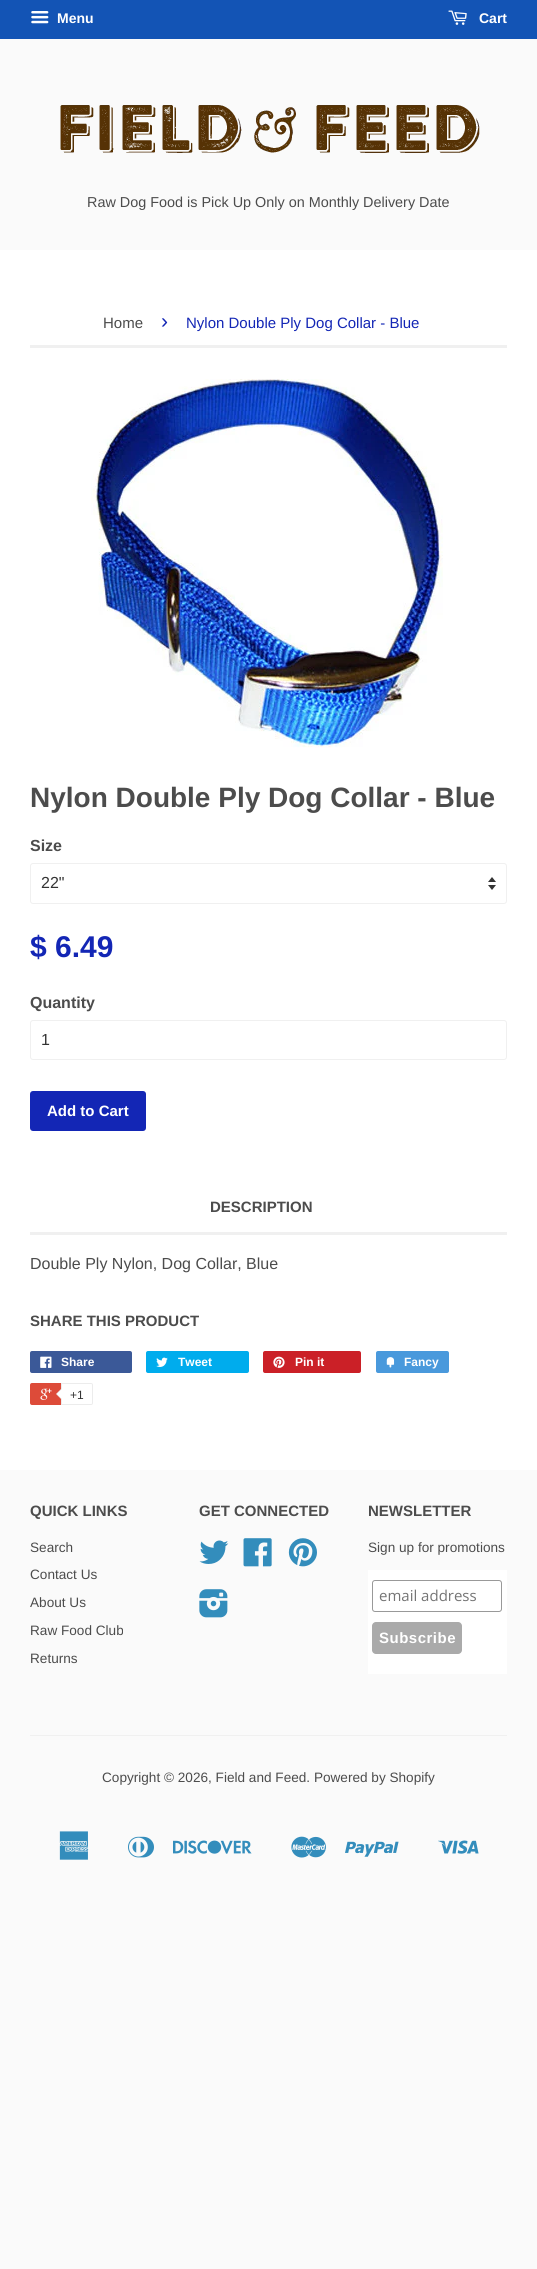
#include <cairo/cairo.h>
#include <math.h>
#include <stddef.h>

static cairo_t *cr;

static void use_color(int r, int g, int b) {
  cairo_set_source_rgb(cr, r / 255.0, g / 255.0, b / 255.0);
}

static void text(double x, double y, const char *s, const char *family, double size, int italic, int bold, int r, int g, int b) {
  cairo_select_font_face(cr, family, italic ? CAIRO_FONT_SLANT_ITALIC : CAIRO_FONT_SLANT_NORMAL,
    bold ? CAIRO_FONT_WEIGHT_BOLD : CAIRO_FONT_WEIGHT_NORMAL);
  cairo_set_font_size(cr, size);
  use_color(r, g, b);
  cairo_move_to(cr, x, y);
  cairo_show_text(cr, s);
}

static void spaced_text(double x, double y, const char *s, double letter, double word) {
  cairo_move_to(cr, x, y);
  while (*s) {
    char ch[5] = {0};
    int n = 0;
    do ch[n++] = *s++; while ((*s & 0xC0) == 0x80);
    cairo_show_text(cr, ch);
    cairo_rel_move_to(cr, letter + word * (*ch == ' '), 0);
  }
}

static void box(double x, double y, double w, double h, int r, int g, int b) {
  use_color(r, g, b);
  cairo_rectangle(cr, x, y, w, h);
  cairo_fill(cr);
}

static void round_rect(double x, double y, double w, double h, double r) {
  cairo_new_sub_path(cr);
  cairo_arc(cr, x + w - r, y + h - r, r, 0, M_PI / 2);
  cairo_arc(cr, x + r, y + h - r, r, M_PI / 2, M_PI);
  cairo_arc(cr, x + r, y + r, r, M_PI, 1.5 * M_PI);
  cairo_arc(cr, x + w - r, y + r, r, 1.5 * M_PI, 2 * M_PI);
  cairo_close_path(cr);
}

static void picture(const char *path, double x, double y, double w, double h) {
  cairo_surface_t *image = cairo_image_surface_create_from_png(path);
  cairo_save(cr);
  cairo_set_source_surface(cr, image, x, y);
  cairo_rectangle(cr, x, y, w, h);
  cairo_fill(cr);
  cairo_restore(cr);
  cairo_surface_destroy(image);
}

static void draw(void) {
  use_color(250, 250, 250);
  cairo_paint(cr);
  box(0, 250, 537, 1220, 255, 255, 255);
  box(0, 0, 537, 39, 19, 84, 181);
  picture("img_01.png", 31, 11, 18, 13);
  picture("img_02.png", 448, 10, 19, 15);
  picture("img_03.png", 60, 105, 420, 48);
  box(30, 345, 477, 3, 240, 240, 240);
  picture("img_04.png", 91, 379, 352, 369);
  picture("img_05.png", 488, 877, 8, 13);
  round_rect(30.5, 863.5, 476, 40, 2.5);
  cairo_set_line_width(cr, 1);
  cairo_stroke(cr);
  round_rect(30.5, 1020.5, 476, 39, 2.5);
  cairo_stroke(cr);
  use_color(19, 38, 181);
  round_rect(30, 1091, 116, 40, 3);
  cairo_fill(cr);
  box(30, 1232, 477, 3, 240, 240, 240);
  use_color(59, 89, 152);
  round_rect(30, 1351, 102, 22, 2);
  cairo_fill(cr);
  picture("img_06.png", 40, 1356, 12, 12);
  use_color(0, 172, 237);
  round_rect(146, 1351, 103, 22, 2);
  cairo_fill(cr);
  picture("img_07.png", 156, 1357, 12, 10);
  use_color(203, 32, 39);
  round_rect(263, 1351, 98, 22, 2);
  cairo_fill(cr);
  picture("img_08.png", 273, 1356, 12, 12);
  use_color(73, 153, 220);
  round_rect(376, 1351, 73, 22, 2);
  cairo_fill(cr);
  picture("img_09.png", 386, 1357, 9, 11);
  use_color(221, 75, 57);
  round_rect(30, 1383, 61, 22, 2);
  cairo_fill(cr);
  picture("img_10.png", 40, 1388, 12, 12);
  use_color(255, 255, 255);
  cairo_new_path(cr);
  cairo_move_to(cr, 61.5, 1383.5);
  cairo_line_to(cr, 91, 1383.5);
  cairo_curve_to(cr, 92, 1383.5, 92.5, 1384, 92.5, 1385);
  cairo_line_to(cr, 92.5, 1403);
  cairo_curve_to(cr, 92.5, 1404, 92, 1404.5, 91, 1404.5);
  cairo_line_to(cr, 61.5, 1404.5);
  cairo_close_path(cr);
  cairo_fill_preserve(cr);
  use_color(236, 236, 236);
  cairo_stroke(cr);
  cairo_new_path(cr);
  cairo_move_to(cr, 62, 1388);
  cairo_line_to(cr, 62, 1400);
  cairo_line_to(cr, 56, 1394);
  cairo_close_path(cr);
  cairo_fill(cr);
  use_color(255, 255, 255);
  cairo_new_path(cr);
  cairo_move_to(cr, 63, 1388);
  cairo_line_to(cr, 63, 1400);
  cairo_line_to(cr, 57, 1394);
  cairo_close_path(cr);
  cairo_fill(cr);
  picture("img_11.png", 199, 1540, 30, 24);
  picture("img_12.png", 243, 1538, 29, 29);
  picture("img_13.png", 288, 1538, 29, 29);
  picture("img_14.png", 199, 1589, 29, 29);
  box(368, 1570, 139, 104, 255, 255, 255);
  round_rect(372.5, 1580.5, 129, 31, 2.5);
  use_color(153, 153, 153);
  cairo_stroke(cr);
  use_color(170, 170, 170);
  round_rect(372, 1622, 90, 32, 4);
  cairo_fill(cr);
  box(30, 1735, 477, 1, 240, 240, 240);
  picture("img_15.png", 59, 1831, 30, 29);
  picture("img_16.png", 128, 1836, 26, 22);
  picture("img_17.png", 173, 1840, 79, 14);
  picture("img_18.png", 291, 1836, 35, 22);
  picture("img_19.png", 345, 1841, 54, 16);
  picture("img_20.png", 438, 1840, 41, 14);
  text(57, 23, "Menu", "Liberation Sans", 14, 0, 1, 255, 255, 255);
  text(479, 23, "Cart", "Liberation Sans", 14, 0, 1, 255, 255, 255);
  text(87, 207, "Raw Dog Food is Pick Up Only on Monthly Delivery Date", "Liberation Sans", 14.4, 0, 0, 76, 76, 76);
  text(103, 328, "Home", "Liberation Sans", 15, 0, 0, 76, 76, 76);
  text(161, 328, "›", "Liberation Sans", 21, 0, 0, 19, 38, 181);
  text(186, 328, "Nylon Double Ply Dog Collar - Blue", "Liberation Sans", 15, 0, 0, 19, 38, 181);
  text(30, 807, "Nylon Double Ply Dog Collar - Blue", "Liberation Sans", 28, 0, 1, 76, 76, 76);
  text(30, 851, "Size", "Liberation Sans", 16, 0, 1, 76, 76, 76);
  text(41, 888, "22\"", "Liberation Sans", 16, 0, 0, 51, 51, 51);
  text(30, 957, "$ 6.49", "Liberation Sans", 30, 0, 1, 19, 38, 181);
  text(30, 1008, "Quantity", "Liberation Sans", 16, 0, 1, 76, 76, 76);
  text(41, 1045, "1", "Liberation Sans", 16, 0, 0, 51, 51, 51);
  text(47, 1116, "Add to Cart", "Liberation Sans", 15, 0, 1, 255, 255, 255);
  text(210, 1212, "DESCRIPTION", "Liberation Sans", 15, 0, 1, 76, 76, 76);
  text(30, 1269, "Double Ply Nylon, Dog Collar, Blue", "Liberation Sans", 16, 0, 0, 76, 76, 76);
  text(30, 1326, "SHARE THIS PRODUCT", "Liberation Sans", 15, 0, 1, 76, 76, 76);
  text(61, 1366, "Share", "Liberation Sans", 12, 0, 1, 255, 255, 255);
  text(178, 1366, "Tweet", "Liberation Sans", 12, 0, 1, 255, 255, 255);
  text(295, 1366, "Pin it", "Liberation Sans", 12, 0, 1, 255, 255, 255);
  text(404, 1366, "Fancy", "Liberation Sans", 12, 0, 1, 255, 255, 255);
  text(70, 1399, "+1", "Liberation Sans", 12, 0, 0, 51, 51, 51);
  text(30, 1516, "QUICK LINKS", "Liberation Sans", 15, 0, 1, 76, 76, 76);
  text(30, 1552, "Search", "Liberation Sans", 13.6, 0, 0, 76, 76, 76);
  text(30, 1579, "Contact Us", "Liberation Sans", 13.6, 0, 0, 76, 76, 76);
  text(30, 1607, "About Us", "Liberation Sans", 13.6, 0, 0, 76, 76, 76);
  text(30, 1635, "Raw Food Club", "Liberation Sans", 13.6, 0, 0, 76, 76, 76);
  text(30, 1663, "Returns", "Liberation Sans", 13.6, 0, 0, 76, 76, 76);
  text(199, 1516, "GET CONNECTED", "Liberation Sans", 15, 0, 1, 76, 76, 76);
  text(368, 1516, "NEWSLETTER", "Liberation Sans", 15, 0, 1, 76, 76, 76);
  text(368, 1552, "Sign up for promotions", "Liberation Sans", 13.6, 0, 0, 76, 76, 76);
  text(379, 1601, "email address", "Open Sans", 15, 0, 0, 117, 117, 117);
  cairo_select_font_face(cr, "Liberation Sans", CAIRO_FONT_SLANT_NORMAL, CAIRO_FONT_WEIGHT_BOLD);
  use_color(255, 255, 255);
  spaced_text(379, 1643, "Subscribe", 0.5, 0);
  text(102, 1782, "Copyright © 2026, Field and Feed. Powered by Shopify", "Liberation Sans", 13.6, 0, 0, 76, 76, 76);
}

int main(void) {
  cairo_surface_t *surface = cairo_image_surface_create(CAIRO_FORMAT_RGB24, 537, 2269);
  cr = cairo_create(surface);
  cairo_font_options_t *options = cairo_font_options_create();
  cairo_font_options_set_hint_metrics(options, CAIRO_HINT_METRICS_OFF);
  cairo_font_options_set_hint_style(options, CAIRO_HINT_STYLE_NONE);
  cairo_set_font_options(cr, options);
  cairo_set_miter_limit(cr, 4);
  draw();
  cairo_surface_write_to_png(surface, "out.png");
  cairo_font_options_destroy(options);
  cairo_destroy(cr);
  cairo_surface_destroy(surface);
  return 0;
}
